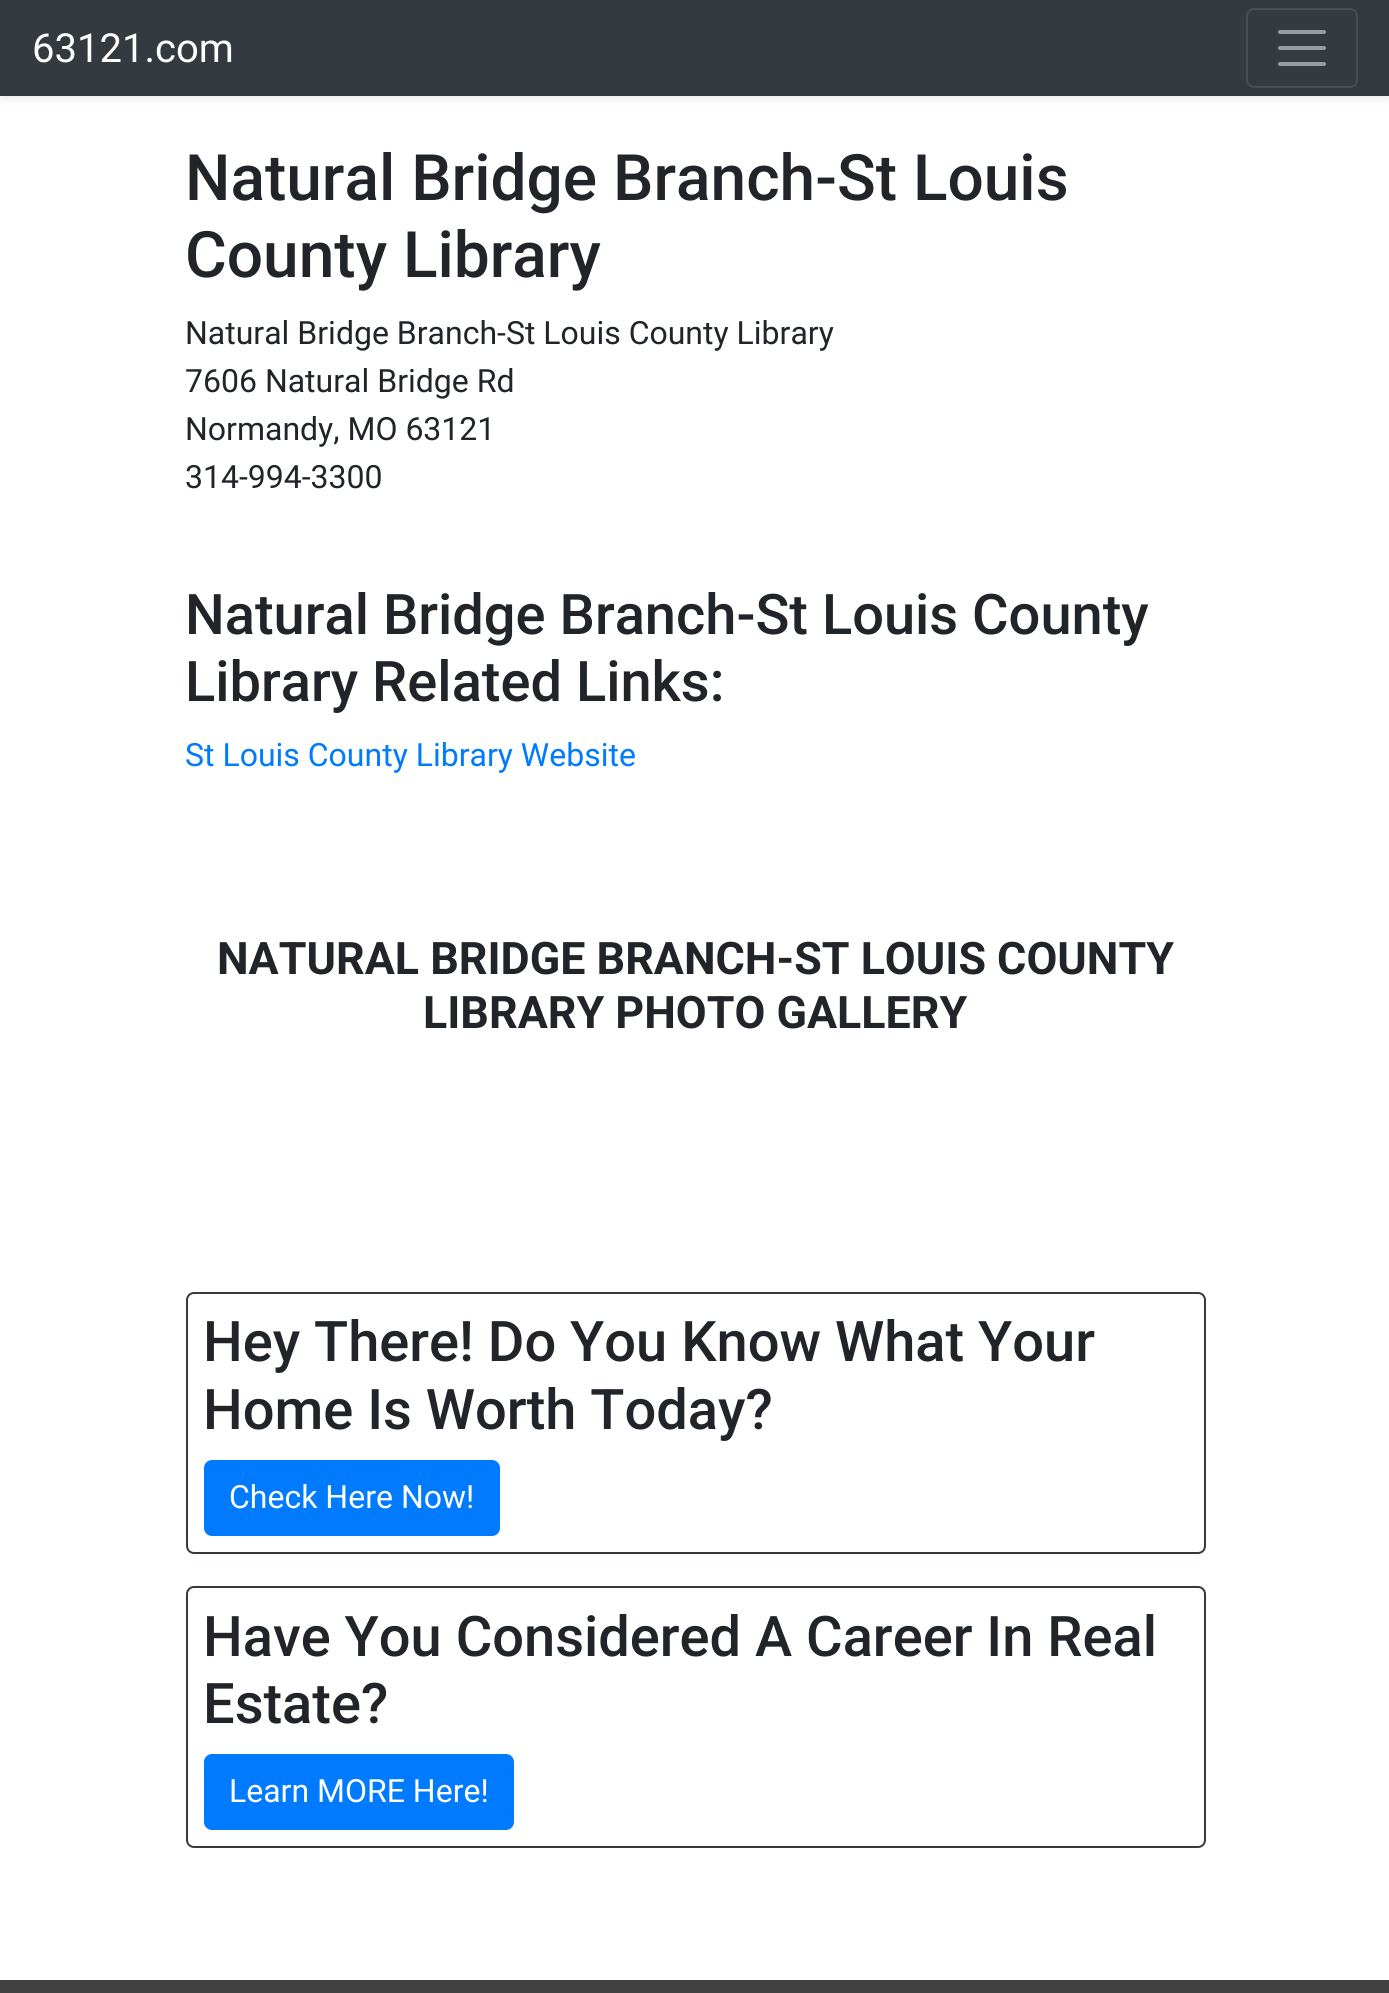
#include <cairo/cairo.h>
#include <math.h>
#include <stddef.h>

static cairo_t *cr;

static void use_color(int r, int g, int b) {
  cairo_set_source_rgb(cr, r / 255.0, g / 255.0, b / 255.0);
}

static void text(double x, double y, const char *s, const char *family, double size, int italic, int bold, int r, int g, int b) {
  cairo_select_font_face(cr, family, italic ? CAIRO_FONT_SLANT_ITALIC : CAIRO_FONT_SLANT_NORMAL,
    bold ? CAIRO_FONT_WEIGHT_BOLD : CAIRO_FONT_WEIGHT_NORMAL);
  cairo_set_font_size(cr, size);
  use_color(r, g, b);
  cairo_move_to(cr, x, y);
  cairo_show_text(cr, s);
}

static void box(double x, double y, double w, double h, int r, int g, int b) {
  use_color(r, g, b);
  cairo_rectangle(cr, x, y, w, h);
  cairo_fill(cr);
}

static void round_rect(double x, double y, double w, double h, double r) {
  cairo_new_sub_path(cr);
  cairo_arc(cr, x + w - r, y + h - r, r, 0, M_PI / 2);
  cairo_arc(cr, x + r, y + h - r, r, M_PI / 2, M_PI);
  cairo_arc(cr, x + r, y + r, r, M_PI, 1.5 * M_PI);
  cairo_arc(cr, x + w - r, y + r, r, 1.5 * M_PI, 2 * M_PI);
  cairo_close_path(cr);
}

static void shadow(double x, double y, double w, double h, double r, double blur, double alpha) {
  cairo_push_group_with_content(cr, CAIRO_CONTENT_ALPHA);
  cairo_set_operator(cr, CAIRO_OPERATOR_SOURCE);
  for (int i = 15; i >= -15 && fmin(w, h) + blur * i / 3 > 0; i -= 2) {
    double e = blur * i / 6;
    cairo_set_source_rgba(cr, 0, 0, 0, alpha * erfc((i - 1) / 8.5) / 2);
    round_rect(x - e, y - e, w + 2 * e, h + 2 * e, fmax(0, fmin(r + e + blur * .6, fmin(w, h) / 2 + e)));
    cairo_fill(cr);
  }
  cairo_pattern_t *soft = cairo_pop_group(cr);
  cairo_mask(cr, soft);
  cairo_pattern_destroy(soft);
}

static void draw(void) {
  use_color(255, 255, 255);
  cairo_paint(cr);
  use_color(0, 0, 0);
  shadow(0, 4, 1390, 96, 0, 4, 0.07);
  box(0, 0, 1389, 96, 52, 58, 64);
  round_rect(1247, 9, 110, 78, 7);
  use_color(72, 78, 83);
  cairo_stroke(cr);
  cairo_new_path(cr);
  cairo_move_to(cr, 1280, 32);
  cairo_line_to(cr, 1324, 32);
  cairo_move_to(cr, 1280, 48);
  cairo_line_to(cr, 1324, 48);
  cairo_move_to(cr, 1280, 64);
  cairo_line_to(cr, 1324, 64);
  use_color(154, 157, 160);
  cairo_set_line_width(cr, 4);
  cairo_set_line_cap(cr, CAIRO_LINE_CAP_ROUND);
  cairo_stroke(cr);
  round_rect(187, 1293, 1018, 260, 7);
  use_color(52, 58, 64);
  cairo_set_line_width(cr, 2);
  cairo_set_line_cap(cr, CAIRO_LINE_CAP_BUTT);
  cairo_stroke(cr);
  use_color(0, 123, 255);
  round_rect(205, 1461, 294, 74, 7);
  cairo_fill_preserve(cr);
  cairo_stroke(cr);
  round_rect(187, 1587, 1018, 260, 7);
  use_color(52, 58, 64);
  cairo_stroke(cr);
  use_color(0, 123, 255);
  round_rect(205, 1755, 308, 74, 7);
  cairo_fill_preserve(cr);
  cairo_stroke(cr);
  box(0, 1980, 1389, 13, 65, 65, 65);
  text(32, 62, "63121.com", "Roboto", 40, 0, 0, 255, 255, 255);
  text(185, 200, "Natural Bridge Branch-St Louis", "Roboto Medium", 64, 0, 0, 33, 37, 41);
  text(185, 277, "County Library", "Roboto Medium", 64, 0, 0, 33, 37, 41);
  text(185, 344, "Natural Bridge Branch-St Louis County Library", "Roboto", 32, 0, 0, 33, 37, 41);
  text(185, 392, "7606 Natural Bridge Rd", "Roboto", 32, 0, 0, 33, 37, 41);
  text(185, 440, "Normandy, MO 63121", "Roboto", 32, 0, 0, 33, 37, 41);
  text(185, 488, "314-994-3300", "Roboto", 32, 0, 0, 33, 37, 41);
  text(185, 634, "Natural Bridge Branch-St Louis County", "Roboto Medium", 56, 0, 0, 33, 37, 41);
  text(185, 701, "Library Related Links:", "Roboto Medium", 56, 0, 0, 33, 37, 41);
  text(185, 766, "St Louis County Library Website", "Roboto", 32, 0, 0, 0, 123, 255);
  text(217, 974, "NATURAL BRIDGE BRANCH-ST LOUIS COUNTY", "Roboto", 44.8, 0, 1, 33, 37, 41);
  text(423, 1028, "LIBRARY PHOTO GALLERY", "Roboto", 44.8, 0, 1, 33, 37, 41);
  text(203, 1361, "Hey There! Do You Know What Your", "Roboto Medium", 56, 0, 0, 33, 37, 41);
  text(203, 1429, "Home Is Worth Today?", "Roboto Medium", 56, 0, 0, 33, 37, 41);
  text(229, 1508, "Check Here Now!", "Roboto", 32, 0, 0, 255, 255, 255);
  text(203, 1656, "Have You Considered A Career In Real", "Roboto Medium", 56, 0, 0, 33, 37, 41);
  text(203, 1723, "Estate?", "Roboto Medium", 56, 0, 0, 33, 37, 41);
  text(229, 1802, "Learn MORE Here!", "Roboto", 32, 0, 0, 255, 255, 255);
}

int main(void) {
  cairo_surface_t *surface = cairo_image_surface_create(CAIRO_FORMAT_RGB24, 1389, 1993);
  cr = cairo_create(surface);
  cairo_font_options_t *options = cairo_font_options_create();
  cairo_font_options_set_hint_metrics(options, CAIRO_HINT_METRICS_OFF);
  cairo_font_options_set_hint_style(options, CAIRO_HINT_STYLE_NONE);
  cairo_set_font_options(cr, options);
  cairo_set_miter_limit(cr, 4);
  draw();
  cairo_surface_write_to_png(surface, "out.png");
  cairo_font_options_destroy(options);
  cairo_destroy(cr);
  cairo_surface_destroy(surface);
  return 0;
}
